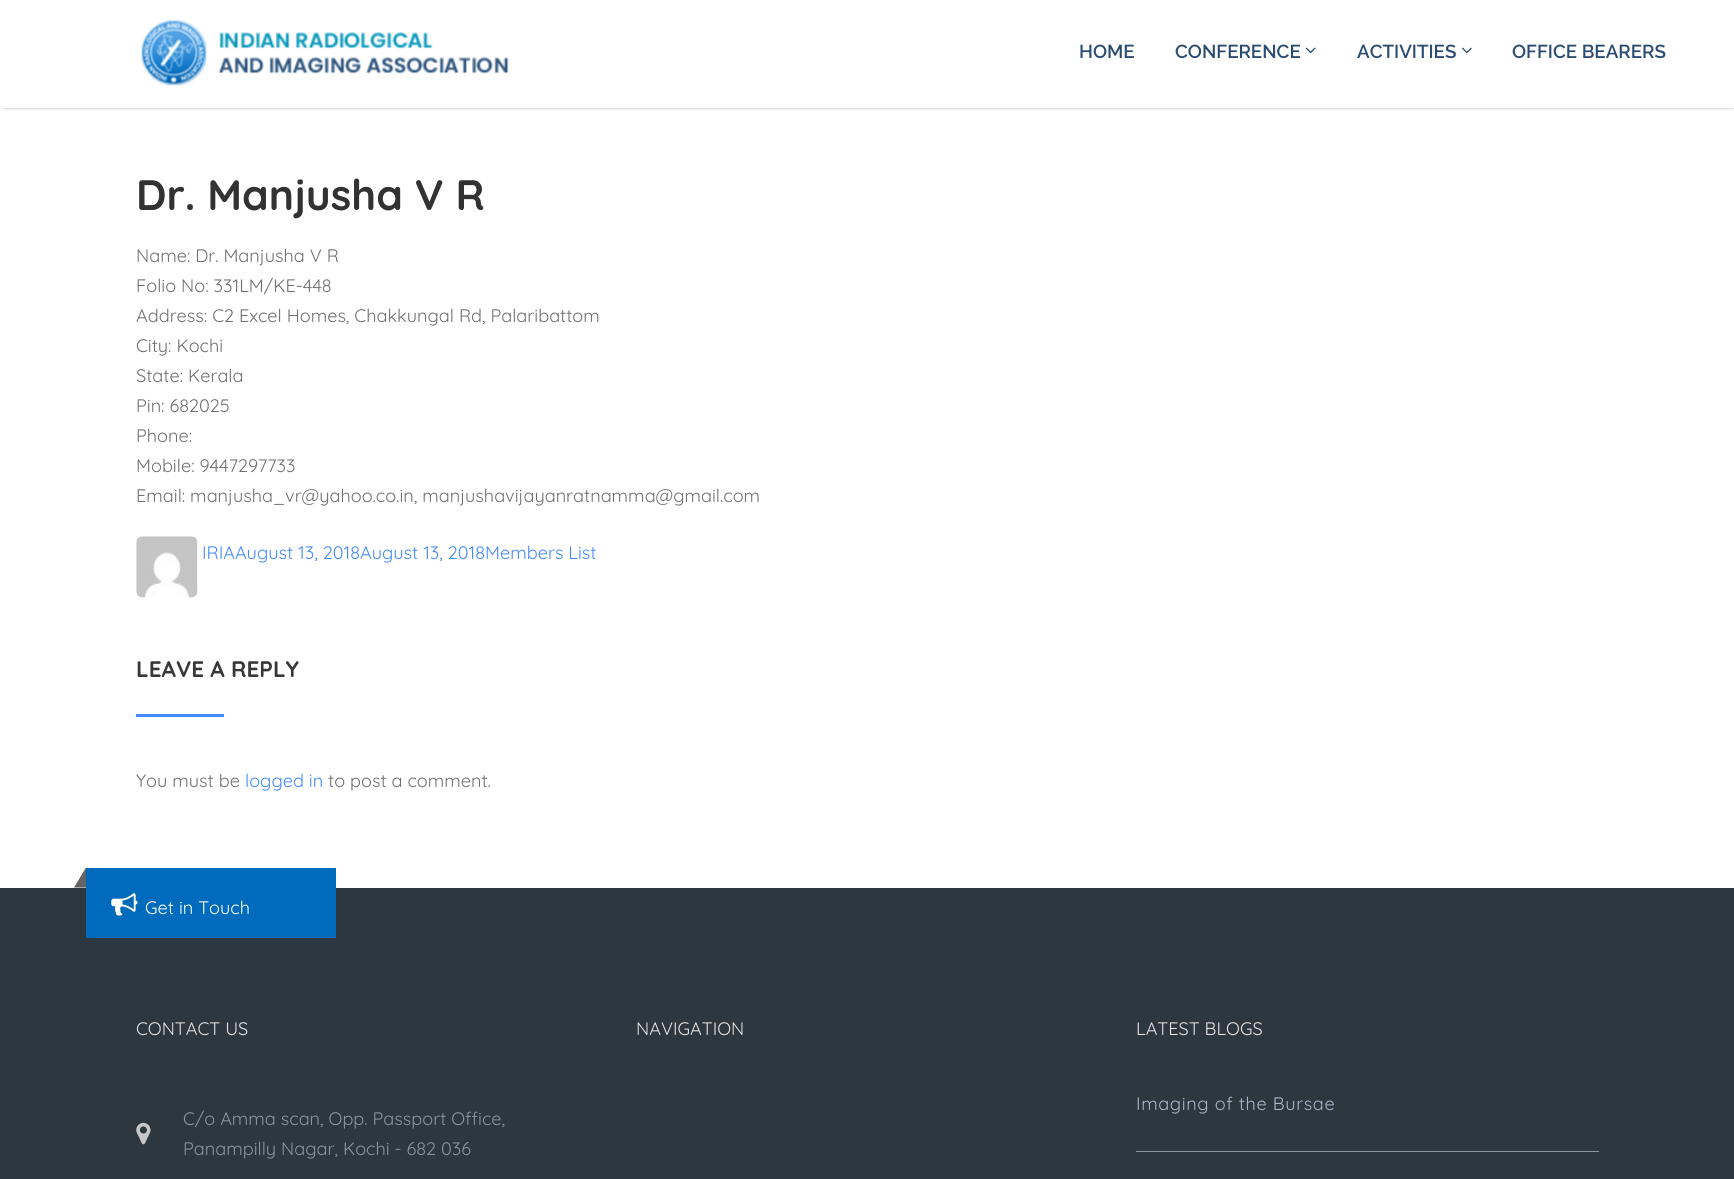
#include <cairo/cairo.h>
#include <math.h>
#include <stddef.h>

static cairo_t *cr;

static void use_color(int r, int g, int b) {
  cairo_set_source_rgb(cr, r / 255.0, g / 255.0, b / 255.0);
}

static void text(double x, double y, const char *s, const char *family, double size, int italic, int bold, int r, int g, int b) {
  cairo_select_font_face(cr, family, italic ? CAIRO_FONT_SLANT_ITALIC : CAIRO_FONT_SLANT_NORMAL,
    bold ? CAIRO_FONT_WEIGHT_BOLD : CAIRO_FONT_WEIGHT_NORMAL);
  cairo_set_font_size(cr, size);
  use_color(r, g, b);
  cairo_move_to(cr, x, y);
  cairo_show_text(cr, s);
}

static void spaced_text(double x, double y, const char *s, double letter, double word) {
  cairo_move_to(cr, x, y);
  while (*s) {
    char ch[5] = {0};
    int n = 0;
    do ch[n++] = *s++; while ((*s & 0xC0) == 0x80);
    cairo_show_text(cr, ch);
    cairo_rel_move_to(cr, letter + word * (*ch == ' '), 0);
  }
}

static void box(double x, double y, double w, double h, int r, int g, int b) {
  use_color(r, g, b);
  cairo_rectangle(cr, x, y, w, h);
  cairo_fill(cr);
}

static void round_rect(double x, double y, double w, double h, double r) {
  cairo_new_sub_path(cr);
  cairo_arc(cr, x + w - r, y + h - r, r, 0, M_PI / 2);
  cairo_arc(cr, x + r, y + h - r, r, M_PI / 2, M_PI);
  cairo_arc(cr, x + r, y + r, r, M_PI, 1.5 * M_PI);
  cairo_arc(cr, x + w - r, y + r, r, 1.5 * M_PI, 2 * M_PI);
  cairo_close_path(cr);
}

static void shadow(double x, double y, double w, double h, double r, double blur, double alpha) {
  cairo_push_group_with_content(cr, CAIRO_CONTENT_ALPHA);
  cairo_set_operator(cr, CAIRO_OPERATOR_SOURCE);
  for (int i = 15; i >= -15 && fmin(w, h) + blur * i / 3 > 0; i -= 2) {
    double e = blur * i / 6;
    cairo_set_source_rgba(cr, 0, 0, 0, alpha * erfc((i - 1) / 8.5) / 2);
    round_rect(x - e, y - e, w + 2 * e, h + 2 * e, fmax(0, fmin(r + e + blur * .6, fmin(w, h) / 2 + e)));
    cairo_fill(cr);
  }
  cairo_pattern_t *soft = cairo_pop_group(cr);
  cairo_mask(cr, soft);
  cairo_pattern_destroy(soft);
}

static void picture(const char *path, double x, double y, double w, double h) {
  cairo_surface_t *image = cairo_image_surface_create_from_png(path);
  cairo_save(cr);
  cairo_set_source_surface(cr, image, x, y);
  cairo_rectangle(cr, x, y, w, h);
  cairo_fill(cr);
  cairo_restore(cr);
  cairo_surface_destroy(image);
}

static void draw(void) {
  use_color(255, 255, 255);
  cairo_paint(cr);
  cairo_save(cr);
  cairo_set_fill_rule(cr, CAIRO_FILL_RULE_EVEN_ODD);
  cairo_new_path(cr);
  cairo_move_to(cr, 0, 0);
  cairo_line_to(cr, 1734, 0);
  cairo_line_to(cr, 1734, 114);
  cairo_line_to(cr, 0, 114);
  cairo_close_path(cr);
  cairo_move_to(cr, 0, 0);
  cairo_line_to(cr, 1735, 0);
  cairo_line_to(cr, 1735, 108);
  cairo_line_to(cr, 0, 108);
  cairo_close_path(cr);
  cairo_clip(cr);
  use_color(174, 174, 174);
  shadow(4, 6, 1729, 102, 0, 1.5, 1);
  cairo_restore(cr);
  cairo_set_source_rgba(cr, 1, 1, 1, 0.8);
  cairo_rectangle(cr, 2, 107, 1732, 1);
  cairo_fill(cr);
  picture("img_01.png", 141, 19, 368, 67);
  picture("img_02.png", 1305, 47, 11, 7);
  picture("img_03.png", 1462, 47, 10, 7);
  picture("img_04.png", 136, 536, 62, 62);
  box(136, 714, 88, 3, 68, 138, 255);
  box(0, 888, 1734, 291, 45, 55, 64);
  box(86, 868, 250, 70, 0, 107, 189);
  use_color(100, 100, 100);
  cairo_new_path(cr);
  cairo_move_to(cr, 86, 867.5);
  cairo_line_to(cr, 86, 887.5);
  cairo_line_to(cr, 74, 887.5);
  cairo_close_path(cr);
  cairo_fill(cr);
  picture("img_05.png", 111, 893, 27, 23);
  picture("img_06.png", 136, 1122, 15, 23);
  box(1136, 1151, 463, 1, 139, 147, 162);
  text(1079, 58, "HOME", "Raleway SemiBold", 18.75, 0, 0, 43, 76, 114);
  text(1175, 58, "CONFERENCE", "Raleway SemiBold", 18.75, 0, 0, 43, 76, 114);
  text(1357, 58, "ACTIVITIES", "Raleway SemiBold", 18.75, 0, 0, 43, 76, 114);
  text(1512, 58, "OFFICE BEARERS", "Raleway SemiBold", 18.75, 0, 0, 43, 76, 114);
  text(136, 210, "Dr. Manjusha V R", "Quicksand", 42.5, 0, 1, 50, 50, 50);
  text(136, 262, "Name: Dr. Manjusha V R", "Quicksand", 18.1, 0, 0, 114, 112, 112);
  text(136, 292, "Folio No: 331LM/KE-448", "Quicksand", 18.1, 0, 0, 114, 112, 112);
  text(136, 322, "Address: C2 Excel Homes, Chakkungal Rd, Palaribattom", "Quicksand", 18.1, 0, 0, 114, 112, 112);
  text(136, 352, "City: Kochi", "Quicksand", 18.1, 0, 0, 114, 112, 112);
  text(136, 382, "State: Kerala", "Quicksand", 18.1, 0, 0, 114, 112, 112);
  text(136, 412, "Pin: 682025", "Quicksand", 18.1, 0, 0, 114, 112, 112);
  text(136, 442, "Phone:", "Quicksand", 18.1, 0, 0, 114, 112, 112);
  text(136, 472, "Mobile: 9447297733", "Quicksand", 18.1, 0, 0, 114, 112, 112);
  text(136, 502, "Email: manjusha_vr@yahoo.co.in, manjushavijayanratnamma@gmail.com", "Quicksand", 18.1, 0, 0, 114, 112, 112);
  text(202, 559, "IRIAAugust 13, 2018August 13, 2018Members List", "Quicksand", 18.1, 0, 0, 68, 138, 255);
  text(136, 677, "LEAVE A REPLY", "Quicksand", 22.5, 0, 1, 56, 56, 56);
  text(136, 787, "You must be", "Quicksand", 18.1, 0, 0, 114, 112, 112);
  text(245, 787, "logged in", "Quicksand", 18.1, 0, 0, 68, 138, 255);
  text(328, 787, "to post a comment.", "Quicksand", 18.1, 0, 0, 114, 112, 112);
  text(145, 914, "Get in Touch", "Quicksand", 18.1, 0, 0, 255, 255, 255);
  text(136, 1035, "CONTACT US", "Quicksand", 18.1, 0, 0, 227, 227, 227);
  text(183, 1125, "C/o Amma scan, Opp. Passport Office,", "Quicksand", 18.1, 0, 0, 139, 147, 162);
  text(183, 1155, "Panampilly Nagar, Kochi - 682 036", "Quicksand", 18.1, 0, 0, 139, 147, 162);
  text(636, 1035, "NAVIGATION", "Quicksand", 18.1, 0, 0, 227, 227, 227);
  text(1136, 1035, "LATEST BLOGS", "Quicksand", 18.1, 0, 0, 227, 227, 227);
  use_color(171, 181, 200);
  spaced_text(1136, 1110, "Imaging of the Bursae", 0.6, 0);
}

int main(void) {
  cairo_surface_t *surface = cairo_image_surface_create(CAIRO_FORMAT_RGB24, 1734, 1179);
  cr = cairo_create(surface);
  cairo_font_options_t *options = cairo_font_options_create();
  cairo_font_options_set_hint_metrics(options, CAIRO_HINT_METRICS_OFF);
  cairo_font_options_set_hint_style(options, CAIRO_HINT_STYLE_NONE);
  cairo_set_font_options(cr, options);
  cairo_set_miter_limit(cr, 4);
  draw();
  cairo_surface_write_to_png(surface, "out.png");
  cairo_font_options_destroy(options);
  cairo_destroy(cr);
  cairo_surface_destroy(surface);
  return 0;
}
